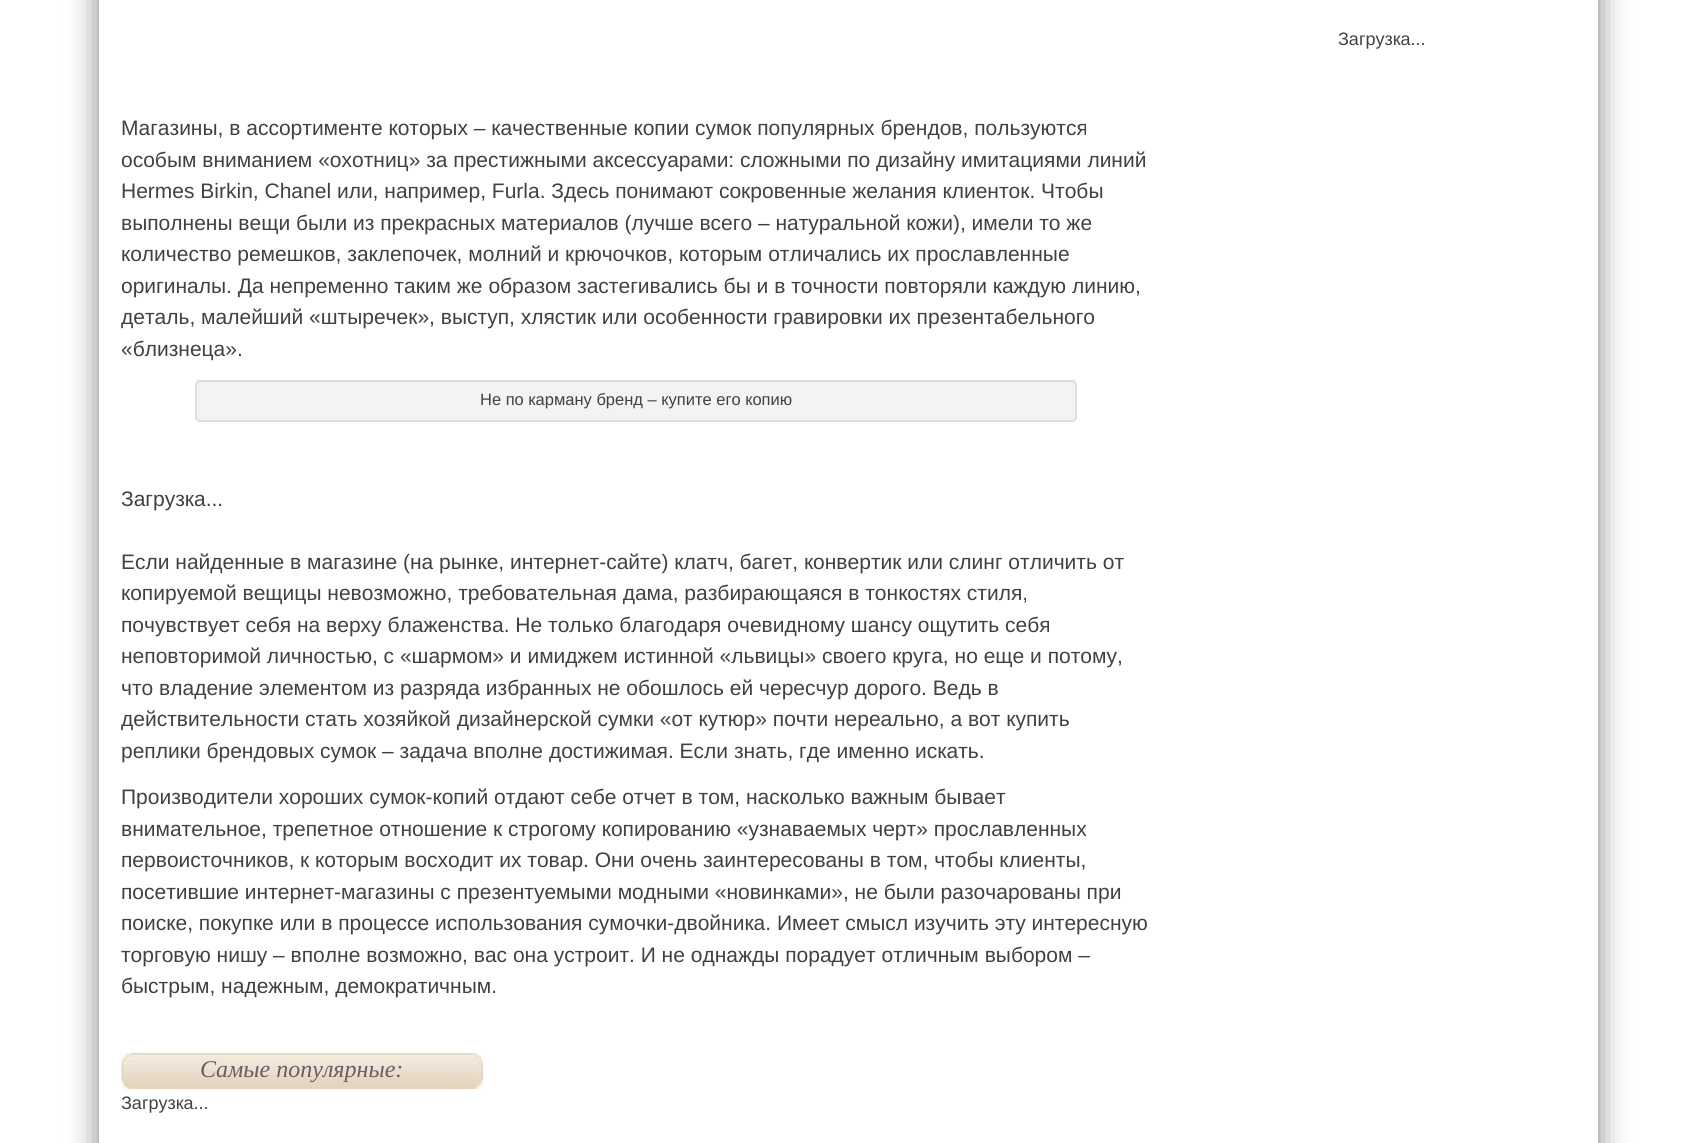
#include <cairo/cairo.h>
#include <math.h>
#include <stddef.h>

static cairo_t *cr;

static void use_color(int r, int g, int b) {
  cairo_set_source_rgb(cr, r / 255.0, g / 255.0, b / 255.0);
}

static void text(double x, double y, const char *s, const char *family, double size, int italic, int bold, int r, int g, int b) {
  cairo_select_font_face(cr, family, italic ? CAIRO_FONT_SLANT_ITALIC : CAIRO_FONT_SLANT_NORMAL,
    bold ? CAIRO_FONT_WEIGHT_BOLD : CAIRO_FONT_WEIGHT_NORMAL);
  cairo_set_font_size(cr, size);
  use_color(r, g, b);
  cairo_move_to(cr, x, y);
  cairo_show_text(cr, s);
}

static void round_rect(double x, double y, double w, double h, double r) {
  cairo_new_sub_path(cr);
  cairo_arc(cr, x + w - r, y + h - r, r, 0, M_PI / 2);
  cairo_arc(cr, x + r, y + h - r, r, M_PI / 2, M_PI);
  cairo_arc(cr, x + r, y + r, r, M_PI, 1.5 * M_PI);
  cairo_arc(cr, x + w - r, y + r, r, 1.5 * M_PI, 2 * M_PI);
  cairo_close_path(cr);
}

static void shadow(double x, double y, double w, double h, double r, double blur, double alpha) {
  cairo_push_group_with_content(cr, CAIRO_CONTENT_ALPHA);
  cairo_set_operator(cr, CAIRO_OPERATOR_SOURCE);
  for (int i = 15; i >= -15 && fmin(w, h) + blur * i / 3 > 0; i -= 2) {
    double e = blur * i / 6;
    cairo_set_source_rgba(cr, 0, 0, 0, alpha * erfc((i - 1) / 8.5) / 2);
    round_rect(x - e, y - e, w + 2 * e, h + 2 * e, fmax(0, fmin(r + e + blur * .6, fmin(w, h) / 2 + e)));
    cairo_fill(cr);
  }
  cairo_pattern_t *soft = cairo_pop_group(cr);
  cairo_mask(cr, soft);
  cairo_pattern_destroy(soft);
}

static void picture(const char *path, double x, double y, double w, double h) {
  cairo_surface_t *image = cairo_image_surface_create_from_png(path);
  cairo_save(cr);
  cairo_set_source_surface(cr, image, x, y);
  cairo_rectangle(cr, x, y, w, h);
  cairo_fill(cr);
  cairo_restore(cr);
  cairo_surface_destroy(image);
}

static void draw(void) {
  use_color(255, 255, 255);
  cairo_paint(cr);
  cairo_save(cr);
  cairo_set_fill_rule(cr, CAIRO_FILL_RULE_EVEN_ODD);
  cairo_new_path(cr);
  cairo_move_to(cr, 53, 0);
  cairo_line_to(cr, 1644, 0);
  cairo_line_to(cr, 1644, 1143);
  cairo_line_to(cr, 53, 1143);
  cairo_close_path(cr);
  cairo_move_to(cr, 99, -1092);
  cairo_line_to(cr, 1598, -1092);
  cairo_line_to(cr, 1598, 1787);
  cairo_line_to(cr, 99, 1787);
  cairo_close_path(cr);
  cairo_clip(cr);
  use_color(0, 0, 0);
  shadow(99, -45, 1499, 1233, 0, 15, 0.5);
  cairo_restore(cr);
  use_color(243, 243, 243);
  round_rect(196, 381, 880, 40, 4);
  cairo_fill_preserve(cr);
  use_color(221, 221, 221);
  cairo_stroke(cr);
  picture("img_01.png", 121, 1053, 362, 36);
  text(1338, 45, "Загрузка...", "Liberation Sans", 18, 0, 0, 64, 65, 68);
  text(121, 135, "Магазины, в ассортименте которых – качественные копии сумок популярных брендов, пользуются", "Liberation Sans", 21, 0, 0, 64, 65, 68);
  text(121, 167, "особым вниманием «охотниц» за престижными аксессуарами: сложными по дизайну имитациями линий", "Liberation Sans", 21, 0, 0, 64, 65, 68);
  text(121, 198, "Hermes Birkin, Chanel или, например, Furla. Здесь понимают сокровенные желания клиенток. Чтобы", "Liberation Sans", 21, 0, 0, 64, 65, 68);
  text(121, 230, "выполнены вещи были из прекрасных материалов (лучше всего – натуральной кожи), имели то же", "Liberation Sans", 21, 0, 0, 64, 65, 68);
  text(121, 261, "количество ремешков, заклепочек, молний и крючочков, которым отличались их прославленные", "Liberation Sans", 21, 0, 0, 64, 65, 68);
  text(121, 293, "оригиналы. Да непременно таким же образом застегивались бы и в точности повторяли каждую линию,", "Liberation Sans", 21, 0, 0, 64, 65, 68);
  text(121, 324, "деталь, малейший «штыречек», выступ, хлястик или особенности гравировки их презентабельного", "Liberation Sans", 21, 0, 0, 64, 65, 68);
  text(121, 356, "«близнеца».", "Liberation Sans", 21, 0, 0, 64, 65, 68);
  text(480, 405, "Не по карману бренд – купите его копию", "Liberation Sans", 16.5, 0, 0, 64, 65, 68);
  text(121, 506, "Загрузка...", "Liberation Sans", 21, 0, 0, 64, 65, 68);
  text(121, 569, "Если найденные в магазине (на рынке, интернет-сайте) клатч, багет, конвертик или слинг отличить от", "Liberation Sans", 21, 0, 0, 64, 65, 68);
  text(121, 600, "копируемой вещицы невозможно, требовательная дама, разбирающаяся в тонкостях стиля,", "Liberation Sans", 21, 0, 0, 64, 65, 68);
  text(121, 632, "почувствует себя на верху блаженства. Не только благодаря очевидному шансу ощутить себя", "Liberation Sans", 21, 0, 0, 64, 65, 68);
  text(121, 663, "неповторимой личностью, с «шармом» и имиджем истинной «львицы» своего круга, но еще и потому,", "Liberation Sans", 21, 0, 0, 64, 65, 68);
  text(121, 695, "что владение элементом из разряда избранных не обошлось ей чересчур дорого. Ведь в", "Liberation Sans", 21, 0, 0, 64, 65, 68);
  text(121, 726, "действительности стать хозяйкой дизайнерской сумки «от кутюр» почти нереально, а вот купить", "Liberation Sans", 21, 0, 0, 64, 65, 68);
  text(121, 758, "реплики брендовых сумок – задача вполне достижимая. Если знать, где именно искать.", "Liberation Sans", 21, 0, 0, 64, 65, 68);
  text(121, 804, "Производители хороших сумок-копий отдают себе отчет в том, насколько важным бывает", "Liberation Sans", 21, 0, 0, 64, 65, 68);
  text(121, 836, "внимательное, трепетное отношение к строгому копированию «узнаваемых черт» прославленных", "Liberation Sans", 21, 0, 0, 64, 65, 68);
  text(121, 867, "первоисточников, к которым восходит их товар. Они очень заинтересованы в том, чтобы клиенты,", "Liberation Sans", 21, 0, 0, 64, 65, 68);
  text(121, 899, "посетившие интернет-магазины с презентуемыми модными «новинками», не были разочарованы при", "Liberation Sans", 21, 0, 0, 64, 65, 68);
  text(121, 930, "поиске, покупке или в процессе использования сумочки-двойника. Имеет смысл изучить эту интересную", "Liberation Sans", 21, 0, 0, 64, 65, 68);
  text(121, 962, "торговую нишу – вполне возможно, вас она устроит. И не однажды порадует отличным выбором –", "Liberation Sans", 21, 0, 0, 64, 65, 68);
  text(121, 993, "быстрым, надежным, демократичным.", "Liberation Sans", 21, 0, 0, 64, 65, 68);
  text(200, 1077, "Самые популярные:", "Liberation Serif", 24, 1, 0, 112, 90, 99);
  text(121, 1109, "Загрузка...", "Liberation Sans", 18, 0, 0, 64, 65, 68);
}

int main(void) {
  cairo_surface_t *surface = cairo_image_surface_create(CAIRO_FORMAT_RGB24, 1694, 1143);
  cr = cairo_create(surface);
  cairo_font_options_t *options = cairo_font_options_create();
  cairo_font_options_set_hint_metrics(options, CAIRO_HINT_METRICS_OFF);
  cairo_font_options_set_hint_style(options, CAIRO_HINT_STYLE_NONE);
  cairo_set_font_options(cr, options);
  cairo_set_miter_limit(cr, 4);
  draw();
  cairo_surface_write_to_png(surface, "out.png");
  cairo_font_options_destroy(options);
  cairo_destroy(cr);
  cairo_surface_destroy(surface);
  return 0;
}
